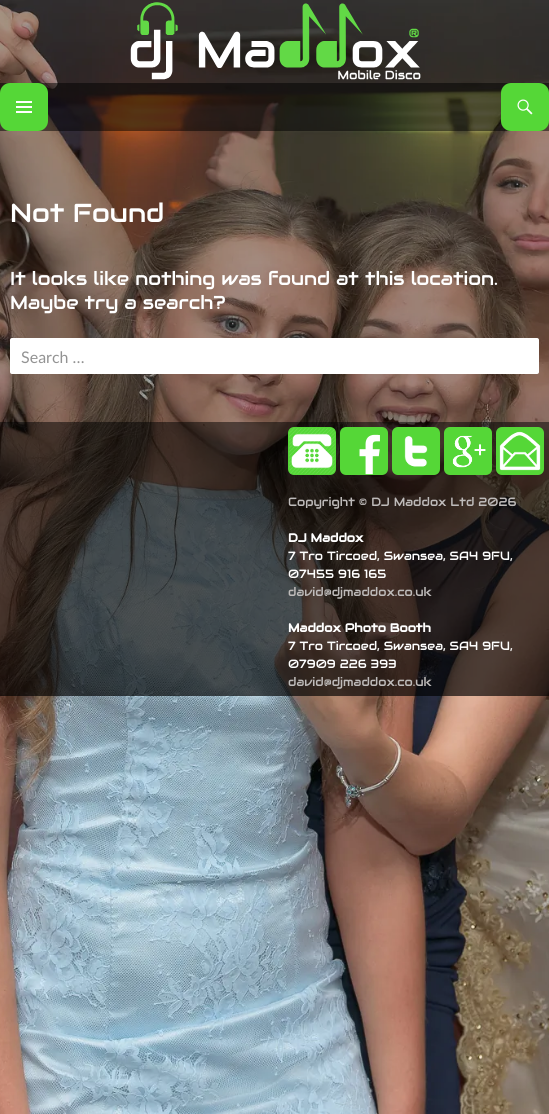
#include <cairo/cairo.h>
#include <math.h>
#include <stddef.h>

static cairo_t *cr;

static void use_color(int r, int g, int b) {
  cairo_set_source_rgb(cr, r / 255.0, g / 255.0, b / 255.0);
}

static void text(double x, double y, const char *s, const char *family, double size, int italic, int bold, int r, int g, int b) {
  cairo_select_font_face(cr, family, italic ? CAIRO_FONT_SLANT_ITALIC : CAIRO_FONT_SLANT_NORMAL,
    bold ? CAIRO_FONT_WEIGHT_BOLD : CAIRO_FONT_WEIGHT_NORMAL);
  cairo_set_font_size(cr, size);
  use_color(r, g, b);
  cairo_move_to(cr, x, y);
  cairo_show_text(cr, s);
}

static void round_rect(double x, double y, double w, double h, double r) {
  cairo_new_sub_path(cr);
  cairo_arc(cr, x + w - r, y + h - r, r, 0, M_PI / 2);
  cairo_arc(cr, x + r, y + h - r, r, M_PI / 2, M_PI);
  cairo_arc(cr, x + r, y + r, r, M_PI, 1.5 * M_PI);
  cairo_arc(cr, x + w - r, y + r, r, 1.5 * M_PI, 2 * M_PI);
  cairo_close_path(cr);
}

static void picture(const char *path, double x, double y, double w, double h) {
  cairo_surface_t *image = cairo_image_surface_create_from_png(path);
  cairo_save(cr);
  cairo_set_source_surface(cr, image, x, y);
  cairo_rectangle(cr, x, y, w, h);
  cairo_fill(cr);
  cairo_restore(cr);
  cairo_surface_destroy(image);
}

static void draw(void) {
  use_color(255, 255, 255);
  cairo_paint(cr);
  picture("img_01.png", 0, 0, 549, 1114);
  cairo_set_source_rgba(cr, 0, 0, 0, 0.33);
  cairo_rectangle(cr, 0, 0, 549, 696);
  cairo_fill(cr);
  picture("img_02.png", 130, 2, 291, 78);
  cairo_set_source_rgba(cr, 0, 0, 0, 0.5);
  cairo_rectangle(cr, 0, 83, 549, 48);
  cairo_fill(cr);
  use_color(85, 215, 55);
  round_rect(0, 83, 48, 48, 10);
  cairo_fill(cr);
  picture("img_03.png", 16, 101, 16, 12);
  round_rect(501, 83, 48, 48, 10);
  cairo_fill(cr);
  picture("img_04.png", 517, 99, 16, 16);
  use_color(255, 255, 255);
  round_rect(10, 338, 529, 36, 2);
  cairo_fill(cr);
  cairo_set_source_rgba(cr, 0, 0, 0, 0.5);
  cairo_rectangle(cr, 0, 422, 549, 274);
  cairo_fill(cr);
  use_color(85, 215, 55);
  round_rect(288, 427, 48, 48, 6);
  cairo_fill(cr);
  round_rect(340, 427, 48, 48, 6);
  cairo_fill(cr);
  round_rect(392, 427, 48, 48, 6);
  cairo_fill(cr);
  round_rect(444, 427, 48, 48, 6);
  cairo_fill(cr);
  round_rect(496, 427, 48, 48, 6);
  cairo_fill(cr);
  picture("img_05.png", 289, 428, 47, 47);
  picture("img_06.png", 359, 434, 21, 41);
  picture("img_07.png", 404, 436, 24, 31);
  picture("img_08.png", 452, 435, 34, 33);
  picture("img_09.png", 499, 431, 42, 40);
  text(10, 222, "Not Found", "Audiowide", 26, 0, 0, 255, 255, 255);
  text(10, 285, "It looks like nothing was found at this location.", "Audiowide", 18.7, 0, 0, 255, 255, 255);
  text(10, 309, "Maybe try a search?", "Audiowide", 18.7, 0, 0, 255, 255, 255);
  text(21, 363, "Search …", "Lato", 16, 0, 0, 147, 147, 147);
  text(288, 506, "Copyright © DJ Maddox Ltd 2026", "Audiowide", 12, 0, 0, 190, 187, 186);
  text(288, 542, "DJ Maddox", "Audiowide", 12, 0, 1, 255, 255, 255);
  text(288, 560, "7 Tro Tircoed, Swansea, SA4 9FU,", "Audiowide", 12, 0, 0, 255, 255, 255);
  text(288, 578, "07455 916 165", "Audiowide", 12, 0, 0, 255, 255, 255);
  text(288, 596, "david@djmaddox.co.uk", "Audiowide", 12, 0, 0, 190, 187, 186);
  text(288, 632, "Maddox Photo Booth", "Audiowide", 12, 0, 1, 255, 255, 255);
  text(288, 650, "7 Tro Tircoed, Swansea, SA4 9FU,", "Audiowide", 12, 0, 0, 255, 255, 255);
  text(288, 668, "07909 226 393", "Audiowide", 12, 0, 0, 255, 255, 255);
  text(288, 686, "david@djmaddox.co.uk", "Audiowide", 12, 0, 0, 190, 187, 186);
}

int main(void) {
  cairo_surface_t *surface = cairo_image_surface_create(CAIRO_FORMAT_RGB24, 549, 1114);
  cr = cairo_create(surface);
  cairo_font_options_t *options = cairo_font_options_create();
  cairo_font_options_set_hint_metrics(options, CAIRO_HINT_METRICS_OFF);
  cairo_font_options_set_hint_style(options, CAIRO_HINT_STYLE_NONE);
  cairo_set_font_options(cr, options);
  cairo_set_miter_limit(cr, 4);
  draw();
  cairo_surface_write_to_png(surface, "out.png");
  cairo_font_options_destroy(options);
  cairo_destroy(cr);
  cairo_surface_destroy(surface);
  return 0;
}
